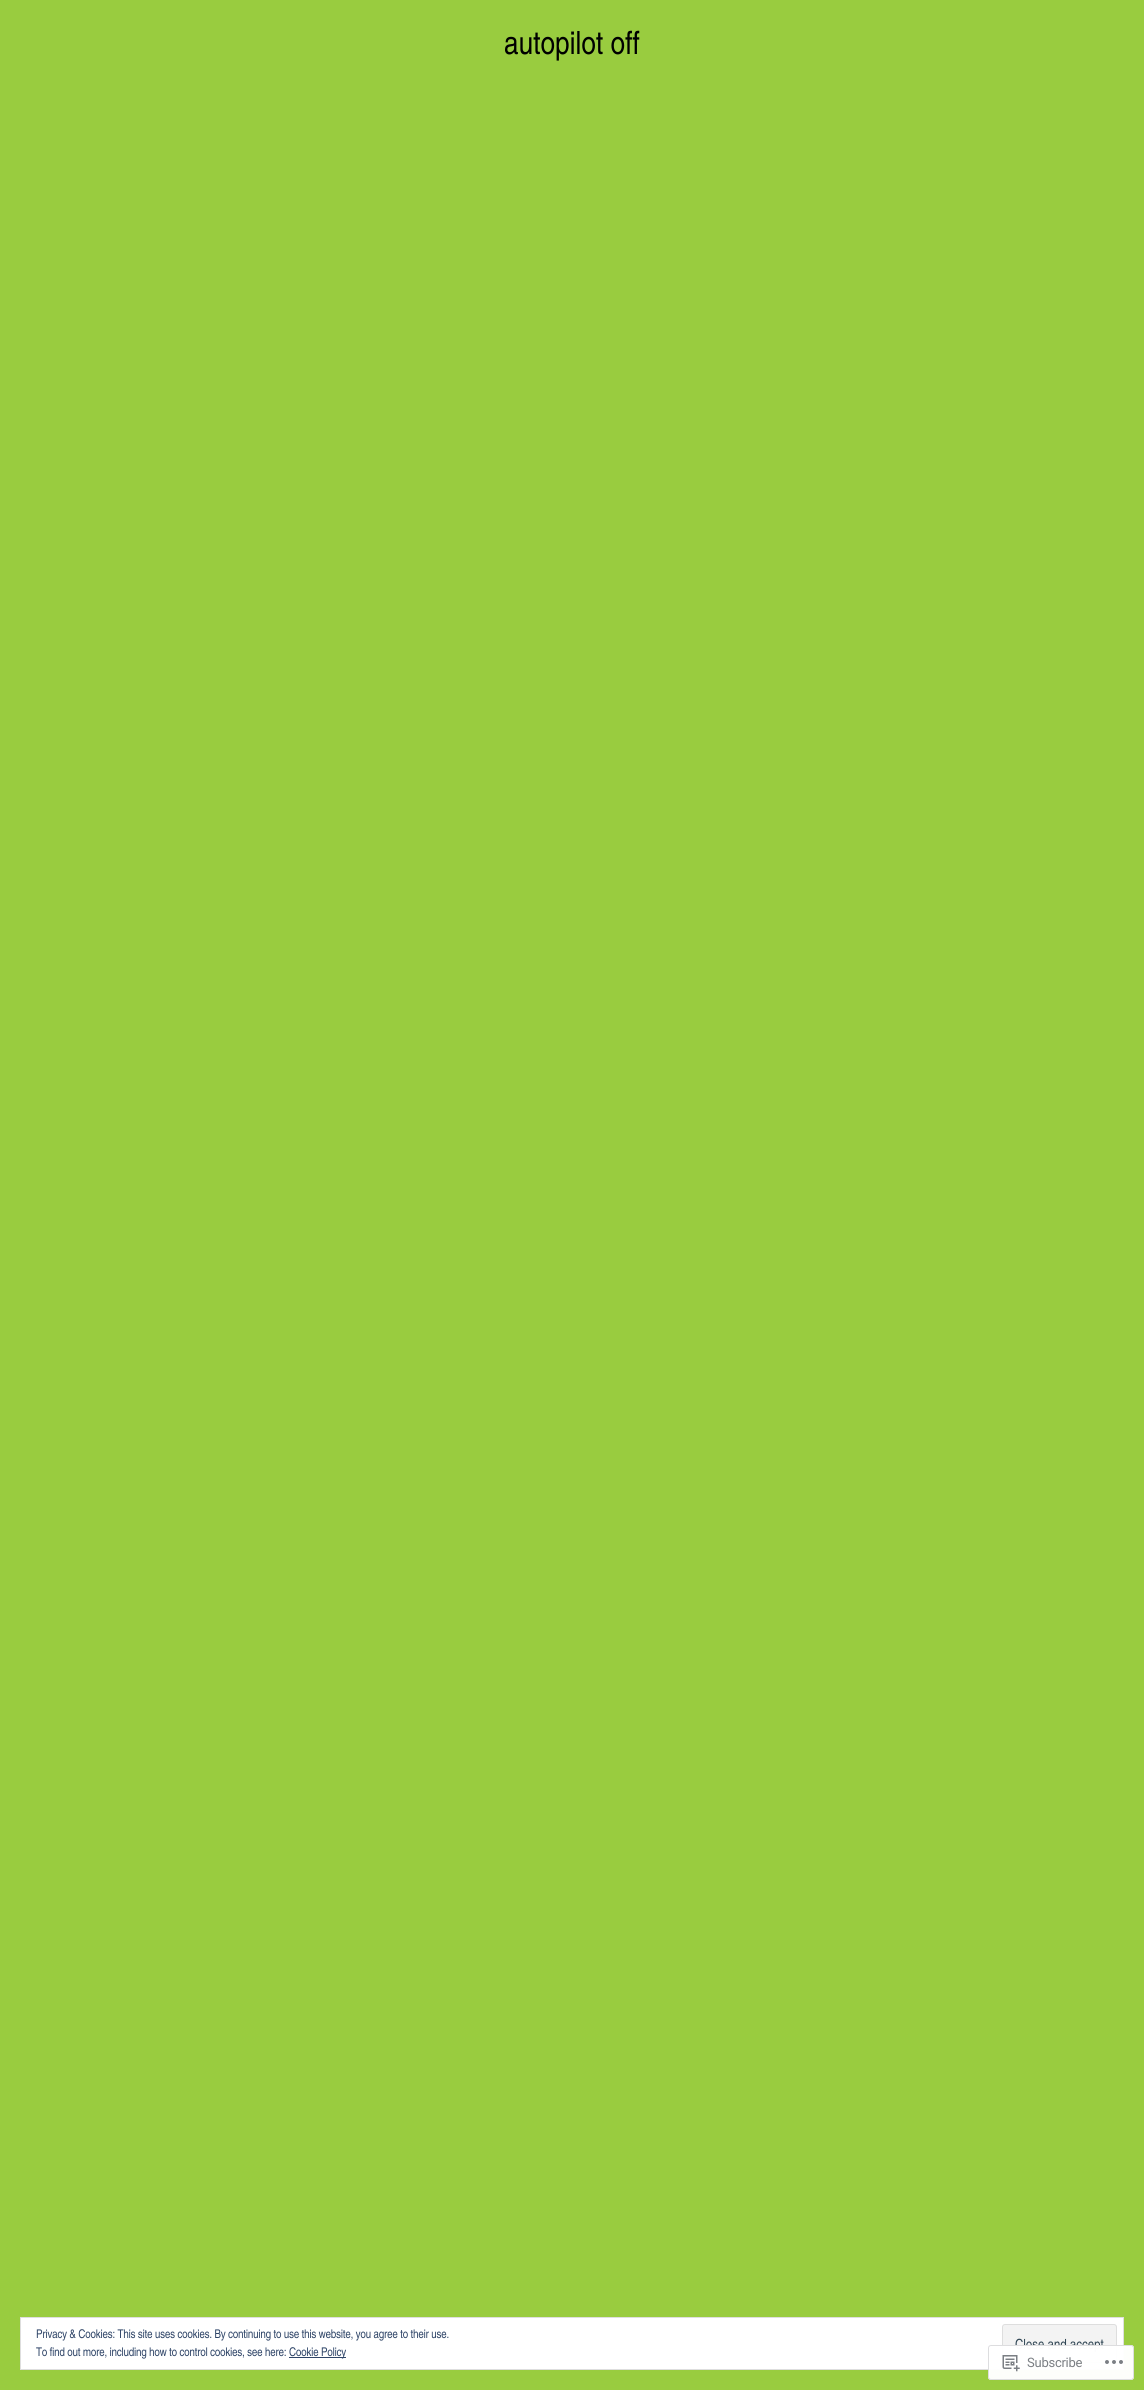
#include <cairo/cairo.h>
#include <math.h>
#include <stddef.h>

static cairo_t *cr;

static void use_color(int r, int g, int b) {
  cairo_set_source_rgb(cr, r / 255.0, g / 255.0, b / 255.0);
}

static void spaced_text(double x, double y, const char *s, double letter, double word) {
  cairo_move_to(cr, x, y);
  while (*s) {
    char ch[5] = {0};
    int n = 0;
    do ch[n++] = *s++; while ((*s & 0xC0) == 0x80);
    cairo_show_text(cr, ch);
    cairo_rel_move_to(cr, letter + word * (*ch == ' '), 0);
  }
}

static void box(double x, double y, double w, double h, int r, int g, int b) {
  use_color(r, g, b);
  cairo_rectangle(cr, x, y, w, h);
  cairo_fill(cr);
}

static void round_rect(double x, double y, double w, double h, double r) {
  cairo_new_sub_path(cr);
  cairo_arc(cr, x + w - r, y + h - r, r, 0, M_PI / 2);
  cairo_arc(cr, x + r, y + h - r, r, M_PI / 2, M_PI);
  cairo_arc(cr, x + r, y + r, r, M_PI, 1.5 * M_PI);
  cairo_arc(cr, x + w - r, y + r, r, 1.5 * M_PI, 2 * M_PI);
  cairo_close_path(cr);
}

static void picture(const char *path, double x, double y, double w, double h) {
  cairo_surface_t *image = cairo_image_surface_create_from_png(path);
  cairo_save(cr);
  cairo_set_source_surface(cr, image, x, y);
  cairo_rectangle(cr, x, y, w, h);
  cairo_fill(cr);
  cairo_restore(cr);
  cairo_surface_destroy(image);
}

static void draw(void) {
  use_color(153, 204, 63);
  cairo_paint(cr);
  picture("img_01.png", 505, 30, 135, 31);
  use_color(255, 255, 255);
  cairo_rectangle(cr, 20.5, 2317.5, 1103, 52);
  cairo_fill_preserve(cr);
  use_color(222, 222, 222);
  cairo_set_line_width(cr, 1);
  cairo_stroke(cr);
  picture("img_02.png", 36, 2329, 413, 12);
  use_color(243, 243, 243);
  round_rect(1002.5, 2324.5, 114, 38, 2.5);
  cairo_fill_preserve(cr);
  use_color(222, 222, 222);
  cairo_stroke(cr);
  picture("img_03.png", 1015, 2338, 89, 14);
  picture("img_04.png", 36, 2347, 250, 12);
  box(289, 2357, 57, 1, 46, 68, 103);
  picture("img_05.png", 289, 2347, 57, 12);
  cairo_set_source_rgba(cr, 1, 1, 1, 0.98);
  round_rect(988, 2345, 146, 35, 3);
  cairo_fill(cr);
  round_rect(988.5, 2345.5, 145, 34, 2.5);
  cairo_set_source_rgba(cr, 0.863, 0.863, 0.871, 0.98);
  cairo_stroke(cr);
  picture("img_06.png", 1002, 2355, 18, 17);
  picture("img_07.png", 1105, 2360, 18, 4);
  cairo_select_font_face(cr, "Roboto", CAIRO_FONT_SLANT_NORMAL, CAIRO_FONT_WEIGHT_NORMAL);
  cairo_set_font_size(cr, 13);
  use_color(123, 127, 132);
  spaced_text(1027, 2367, "Subscribe", -0.25, 0);
}

int main(void) {
  cairo_surface_t *surface = cairo_image_surface_create(CAIRO_FORMAT_RGB24, 1144, 2390);
  cr = cairo_create(surface);
  cairo_font_options_t *options = cairo_font_options_create();
  cairo_font_options_set_hint_metrics(options, CAIRO_HINT_METRICS_OFF);
  cairo_font_options_set_hint_style(options, CAIRO_HINT_STYLE_NONE);
  cairo_set_font_options(cr, options);
  cairo_set_miter_limit(cr, 4);
  draw();
  cairo_surface_write_to_png(surface, "out.png");
  cairo_font_options_destroy(options);
  cairo_destroy(cr);
  cairo_surface_destroy(surface);
  return 0;
}
